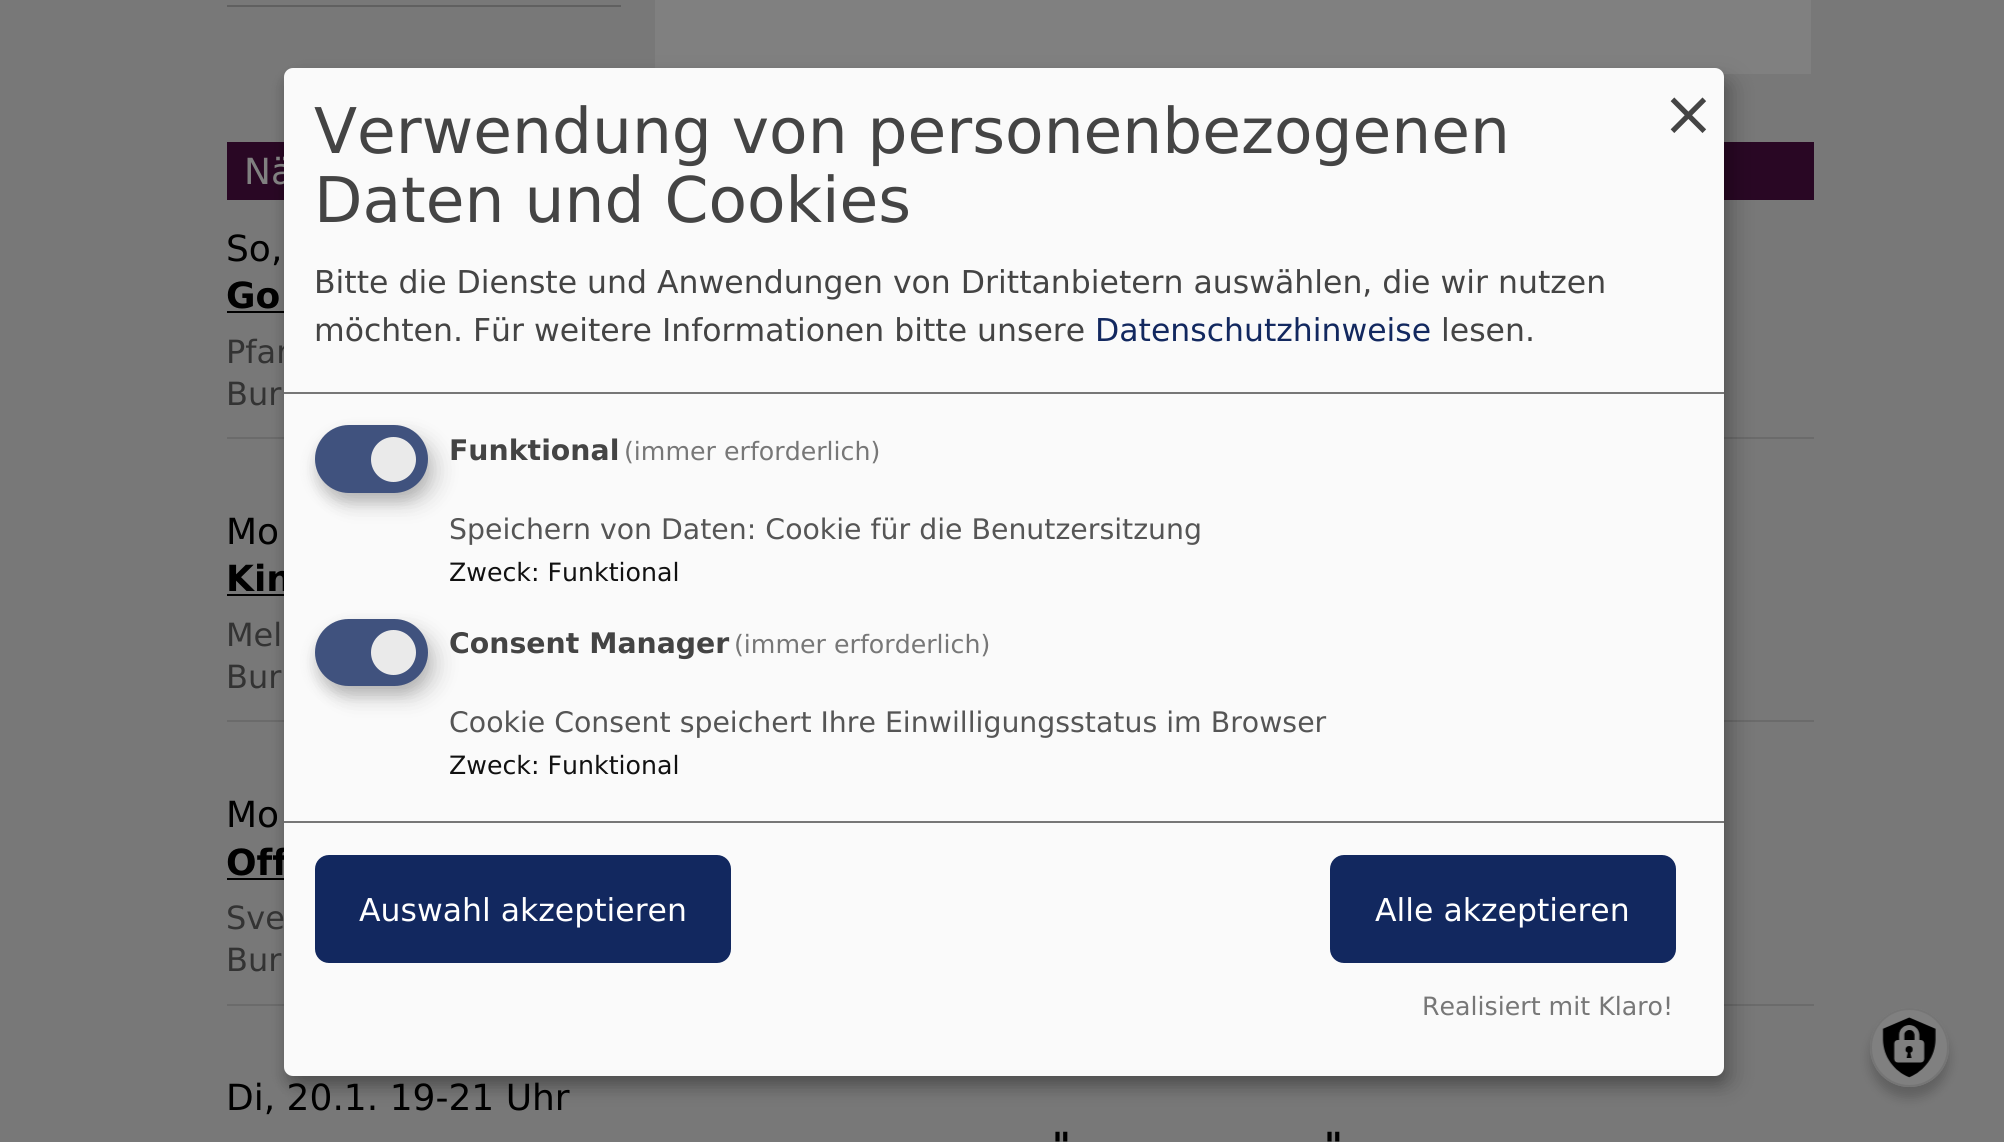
#include <cairo/cairo.h>
#include <math.h>
#include <stddef.h>

static cairo_t *cr;

static void use_color(int r, int g, int b) {
  cairo_set_source_rgb(cr, r / 255.0, g / 255.0, b / 255.0);
}

static void text(double x, double y, const char *s, const char *family, double size, int italic, int bold, int r, int g, int b) {
  cairo_select_font_face(cr, family, italic ? CAIRO_FONT_SLANT_ITALIC : CAIRO_FONT_SLANT_NORMAL,
    bold ? CAIRO_FONT_WEIGHT_BOLD : CAIRO_FONT_WEIGHT_NORMAL);
  cairo_set_font_size(cr, size);
  use_color(r, g, b);
  cairo_move_to(cr, x, y);
  cairo_show_text(cr, s);
}

static void box(double x, double y, double w, double h, int r, int g, int b) {
  use_color(r, g, b);
  cairo_rectangle(cr, x, y, w, h);
  cairo_fill(cr);
}

static void round_rect(double x, double y, double w, double h, double r) {
  cairo_new_sub_path(cr);
  cairo_arc(cr, x + w - r, y + h - r, r, 0, M_PI / 2);
  cairo_arc(cr, x + r, y + h - r, r, M_PI / 2, M_PI);
  cairo_arc(cr, x + r, y + r, r, M_PI, 1.5 * M_PI);
  cairo_arc(cr, x + w - r, y + r, r, 1.5 * M_PI, 2 * M_PI);
  cairo_close_path(cr);
}

static void shadow(double x, double y, double w, double h, double r, double blur, double alpha) {
  cairo_push_group_with_content(cr, CAIRO_CONTENT_ALPHA);
  cairo_set_operator(cr, CAIRO_OPERATOR_SOURCE);
  for (int i = 15; i >= -15 && fmin(w, h) + blur * i / 3 > 0; i -= 2) {
    double e = blur * i / 6;
    cairo_set_source_rgba(cr, 0, 0, 0, alpha * erfc((i - 1) / 8.5) / 2);
    round_rect(x - e, y - e, w + 2 * e, h + 2 * e, fmax(0, fmin(r + e + blur * .6, fmin(w, h) / 2 + e)));
    cairo_fill(cr);
  }
  cairo_pattern_t *soft = cairo_pop_group(cr);
  cairo_mask(cr, soft);
  cairo_pattern_destroy(soft);
}

static void picture(const char *path, double x, double y, double w, double h) {
  cairo_surface_t *image = cairo_image_surface_create_from_png(path);
  cairo_save(cr);
  cairo_set_source_surface(cr, image, x, y);
  cairo_rectangle(cr, x, y, w, h);
  cairo_fill(cr);
  cairo_restore(cr);
  cairo_surface_destroy(image);
}

static void draw(void) {
  use_color(120, 120, 120);
  cairo_paint(cr);
  box(655, 0, 1156, 74, 128, 128, 128);
  box(227, 142, 1587, 58, 41, 7, 36);
  box(227, 437, 1587, 2, 107, 107, 107);
  box(227, 311, 57, 2, 0, 0, 0);
  box(227, 720, 1587, 2, 107, 107, 107);
  box(227, 594, 57, 2, 0, 0, 0);
  box(227, 1004, 1587, 2, 107, 107, 107);
  box(227, 878, 57, 2, 0, 0, 0);
  use_color(0, 0, 0);
  shadow(295, 79, 1440, 1008, 9, 11, 0.19);
  shadow(284, 77, 1440, 1008, 9, 7, 0.2);
  box(227, 5, 394, 2, 96, 96, 96);
  use_color(0, 0, 0);
  shadow(1870, 1019, 79, 79, 39.5, 5.5, 0.2);
  use_color(128, 128, 128);
  cairo_arc(cr, 1909.5, 1047.5, 39.5, 0, 2 * M_PI);
  cairo_fill(cr);
  picture("img_01.png", 1882, 1017, 54, 61);
  cairo_arc(cr, 1909.5, 1047.5, 38.5, 0, 2 * M_PI);
  use_color(117, 117, 117);
  cairo_stroke(cr);
  text(244, 184, "Nä", "DejaVu Sans", 36, 0, 0, 128, 128, 128);
  text(226, 261, "So,", "DejaVu Sans", 36, 0, 0, 0, 0, 0);
  text(226, 308, "Go", "DejaVu Sans", 36, 0, 1, 0, 0, 0);
  text(226, 363, "Pfar", "DejaVu Sans", 32, 0, 0, 51, 51, 51);
  text(226, 405, "Bur", "DejaVu Sans", 32, 0, 0, 51, 51, 51);
  text(226, 544, "Mo", "DejaVu Sans", 36, 0, 0, 0, 0, 0);
  text(226, 591, "Kin", "DejaVu Sans", 36, 0, 1, 0, 0, 0);
  text(226, 646, "Mel", "DejaVu Sans", 32, 0, 0, 51, 51, 51);
  text(226, 688, "Bur", "DejaVu Sans", 32, 0, 0, 51, 51, 51);
  text(226, 827, "Mo", "DejaVu Sans", 36, 0, 0, 0, 0, 0);
  text(226, 875, "Off", "DejaVu Sans", 36, 0, 1, 0, 0, 0);
  text(226, 929, "Sve", "DejaVu Sans", 32, 0, 0, 51, 51, 51);
  use_color(250, 250, 250);
  round_rect(284, 68, 1440, 1008, 9);
  cairo_fill(cr);
  text(1662, 135, "×", "DejaVu Sans", 63, 0, 0, 68, 68, 68);
  use_color(50, 50, 50);
  shadow(315, 628, 113, 67, 33.5, 7, 0.2);
  use_color(0, 0, 0);
  shadow(326, 630, 113, 68, 34, 11, 0.15);
  use_color(64, 82, 126);
  round_rect(315, 619, 113, 67, 33.5);
  cairo_fill(cr);
  use_color(234, 234, 234);
  cairo_arc(cr, 393.5, 652.5, 22.5, 0, 2 * M_PI);
  cairo_fill(cr);
  text(449, 774, "Zweck: Funktional", "DejaVu Sans", 25.25, 0, 0, 17, 17, 17);
  text(449, 732, "Cookie Consent speichert Ihre Einwilligungsstatus im Browser", "DejaVu Sans", 28.35, 0, 0, 85, 85, 85);
  text(734, 653, "(immer erforderlich)", "DejaVu Sans", 25.25, 0, 0, 119, 119, 119);
  text(449, 653, "Consent Manager", "DejaVu Sans", 28.35, 0, 1, 68, 68, 68);
  use_color(50, 50, 50);
  shadow(315, 434, 113, 68, 34, 7, 0.2);
  use_color(0, 0, 0);
  shadow(326, 437, 113, 67, 33.5, 11, 0.15);
  use_color(64, 82, 126);
  round_rect(315, 425, 113, 68, 34);
  cairo_fill(cr);
  use_color(234, 234, 234);
  cairo_arc(cr, 393.5, 459.5, 22.5, 0, 2 * M_PI);
  cairo_fill(cr);
  text(449, 581, "Zweck: Funktional", "DejaVu Sans", 25.25, 0, 0, 17, 17, 17);
  text(449, 539, "Speichern von Daten: Cookie für die Benutzersitzung", "DejaVu Sans", 28.35, 0, 0, 85, 85, 85);
  text(624, 460, "(immer erforderlich)", "DejaVu Sans", 25.25, 0, 0, 119, 119, 119);
  text(449, 460, "Funktional", "DejaVu Sans", 28.35, 0, 1, 68, 68, 68);
  text(1422, 1015, "Realisiert mit Klaro!", "DejaVu Sans", 25.25, 0, 0, 119, 119, 119);
  use_color(18, 40, 95);
  round_rect(1333.5, 858.5, 339, 101, 10.5);
  cairo_fill_preserve(cr);
  cairo_set_line_width(cr, 7);
  cairo_stroke(cr);
  text(1375, 921, "Alle akzeptieren", "DejaVu Sans", 31.5, 0, 0, 255, 255, 255);
  use_color(18, 40, 95);
  round_rect(318.5, 858.5, 409, 101, 10.5);
  cairo_fill_preserve(cr);
  cairo_stroke(cr);
  text(359, 921, "Auswahl akzeptieren", "DejaVu Sans", 31.5, 0, 0, 255, 255, 255);
  text(1441, 341, "lesen.", "DejaVu Sans", 31.5, 0, 0, 68, 68, 68);
  text(1095, 341, "Datenschutzhinweise", "DejaVu Sans", 31.5, 0, 0, 18, 40, 95);
  text(314, 341, "möchten. Für weitere Informationen bitte unsere", "DejaVu Sans", 31.5, 0, 0, 68, 68, 68);
  text(314, 293, "Bitte die Dienste und Anwendungen von Drittanbietern auswählen, die wir nutzen", "DejaVu Sans", 31.5, 0, 0, 68, 68, 68);
  text(314, 222, "Daten und Cookies", "DejaVu Sans", 63, 0, 0, 68, 68, 68);
  text(314, 153, "Verwendung von personenbezogenen", "DejaVu Sans", 63, 0, 0, 68, 68, 68);
  box(284, 821, 1440, 2, 119, 119, 119);
  box(284, 392, 1440, 2, 119, 119, 119);
  text(226, 971, "Bur", "DejaVu Sans", 32, 0, 0, 51, 51, 51);
  text(226, 1110, "Di, 20.1. 19-21 Uhr", "DejaVu Sans", 36, 0, 0, 0, 0, 0);
  text(1052, 1158, "\"", "DejaVu Sans", 36, 0, 1, 0, 0, 0);
  text(1324, 1158, "\"", "DejaVu Sans", 36, 0, 1, 0, 0, 0);
}

int main(void) {
  cairo_surface_t *surface = cairo_image_surface_create(CAIRO_FORMAT_RGB24, 2004, 1142);
  cr = cairo_create(surface);
  cairo_font_options_t *options = cairo_font_options_create();
  cairo_font_options_set_hint_metrics(options, CAIRO_HINT_METRICS_OFF);
  cairo_font_options_set_hint_style(options, CAIRO_HINT_STYLE_NONE);
  cairo_set_font_options(cr, options);
  cairo_set_miter_limit(cr, 4);
  draw();
  cairo_surface_write_to_png(surface, "out.png");
  cairo_font_options_destroy(options);
  cairo_destroy(cr);
  cairo_surface_destroy(surface);
  return 0;
}
